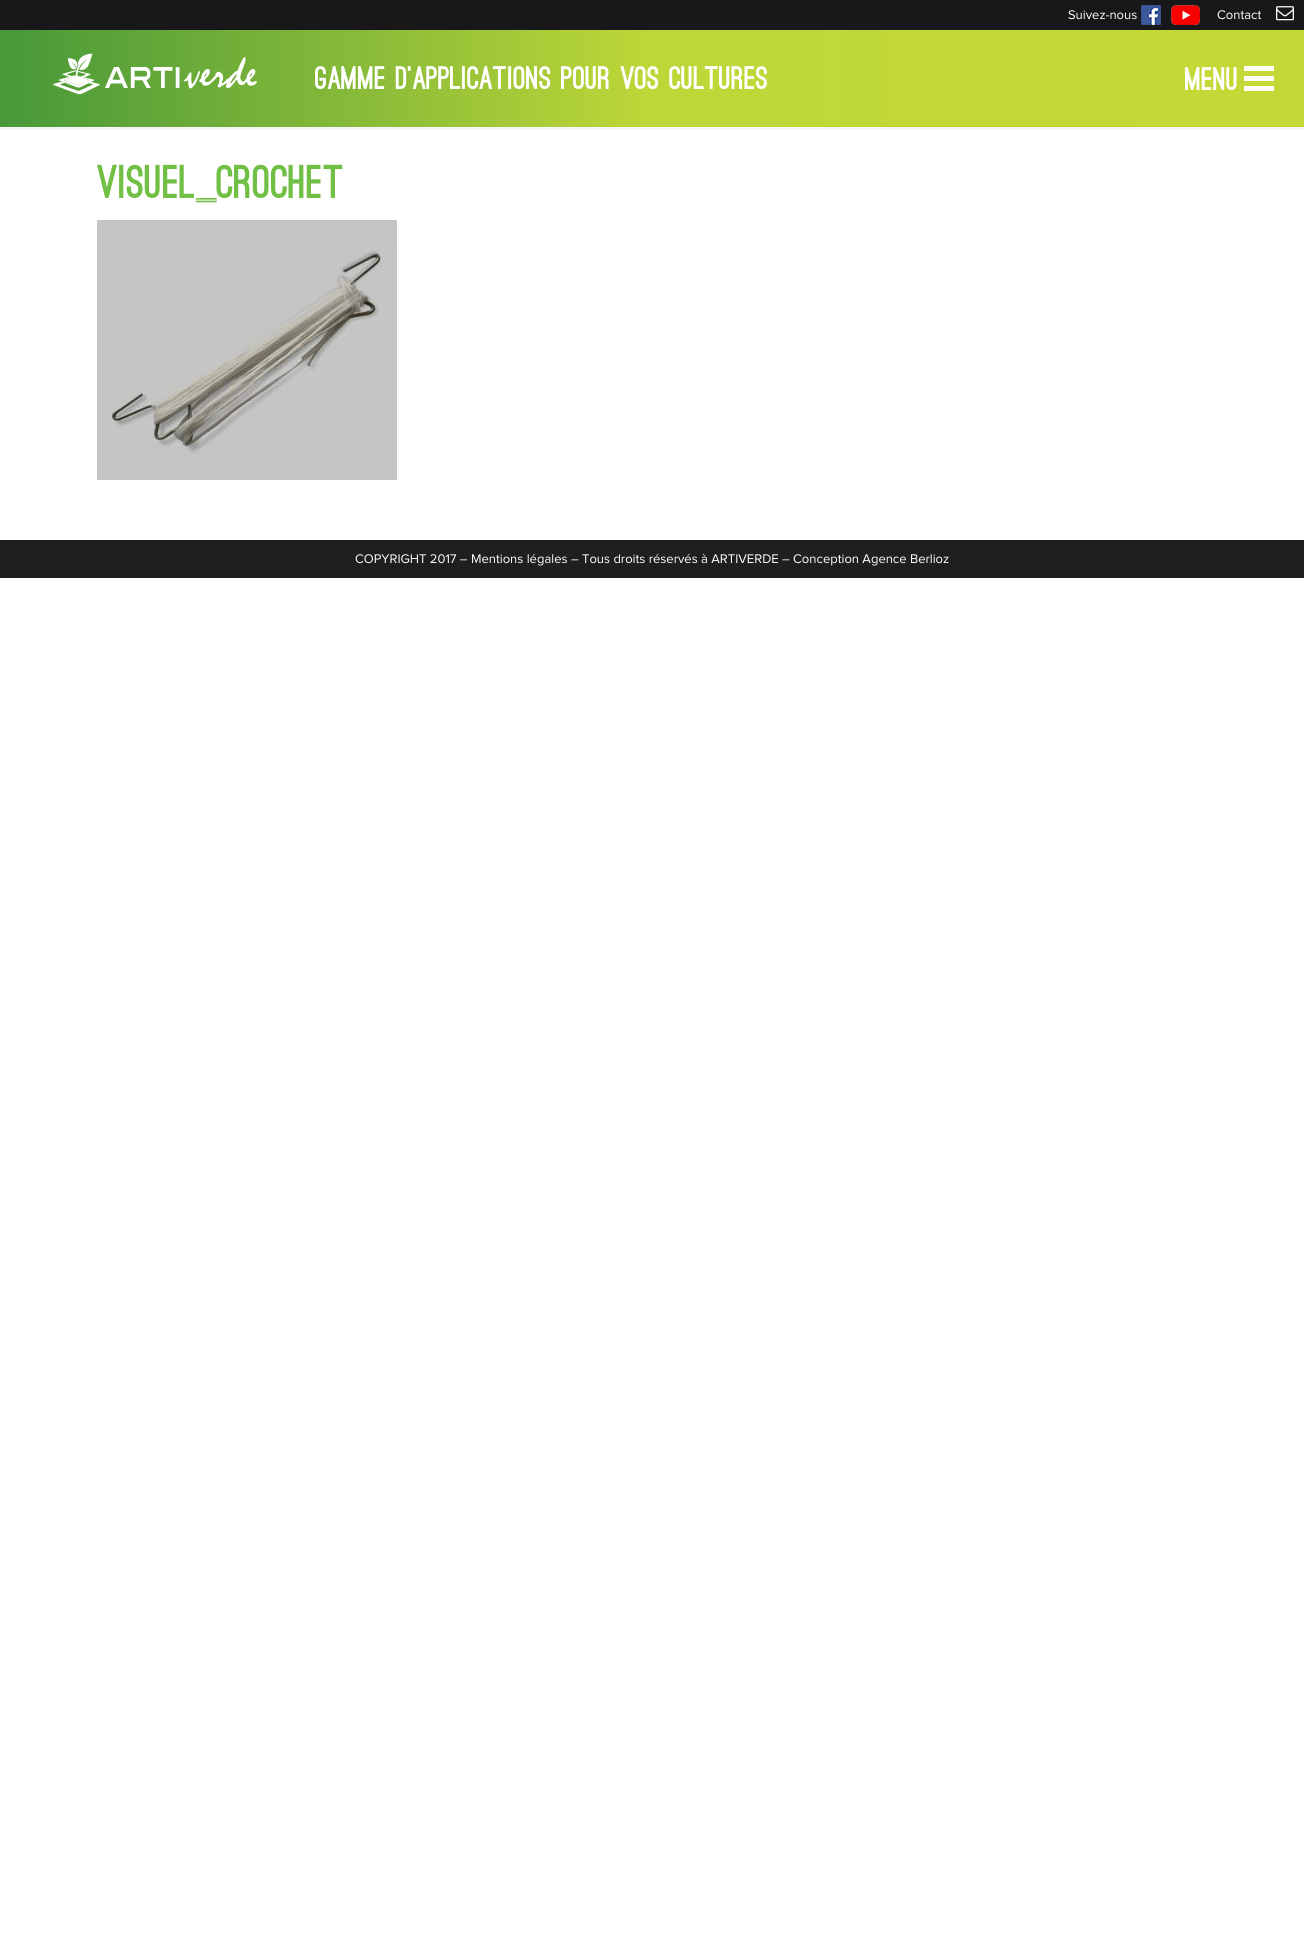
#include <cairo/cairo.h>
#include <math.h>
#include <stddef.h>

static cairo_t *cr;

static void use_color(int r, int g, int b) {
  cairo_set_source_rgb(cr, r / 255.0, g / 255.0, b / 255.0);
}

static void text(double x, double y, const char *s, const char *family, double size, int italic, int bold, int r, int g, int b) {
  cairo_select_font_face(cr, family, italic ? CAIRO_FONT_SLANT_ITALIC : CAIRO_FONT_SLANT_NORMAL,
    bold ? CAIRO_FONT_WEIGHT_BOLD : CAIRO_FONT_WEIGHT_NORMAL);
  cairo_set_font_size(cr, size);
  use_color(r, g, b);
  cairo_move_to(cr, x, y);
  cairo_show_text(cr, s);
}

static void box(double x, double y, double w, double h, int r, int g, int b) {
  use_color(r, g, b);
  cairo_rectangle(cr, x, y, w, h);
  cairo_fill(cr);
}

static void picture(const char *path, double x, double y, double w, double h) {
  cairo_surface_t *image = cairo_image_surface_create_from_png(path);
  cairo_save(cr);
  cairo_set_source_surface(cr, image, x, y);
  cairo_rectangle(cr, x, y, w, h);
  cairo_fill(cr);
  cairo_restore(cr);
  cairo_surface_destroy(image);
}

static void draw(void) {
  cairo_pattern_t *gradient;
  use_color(255, 255, 255);
  cairo_paint(cr);
  box(0, 0, 1304, 30, 24, 24, 26);
  picture("img_01.png", 1141, 5, 20, 20);
  picture("img_02.png", 1171, 5, 29, 20);
  picture("img_03.png", 1276, 6, 18, 15);
  gradient = cairo_pattern_create_linear(0, 79, 1304, 78);
  cairo_pattern_add_color_stop_rgba(gradient, 0, 0.278, 0.596, 0.224, 1);
  cairo_pattern_add_color_stop_rgba(gradient, 0.5, 0.745, 0.843, 0.22, 1);
  cairo_pattern_add_color_stop_rgba(gradient, 1, 0.773, 0.851, 0.212, 1);
  cairo_set_source(cr, gradient);
  cairo_pattern_destroy(gradient);
  cairo_rectangle(cr, 0, 30, 1304, 97);
  cairo_fill(cr);
  box(0, 127, 1304, 3, 246, 246, 246);
  picture("img_04.png", 53, 53, 204, 42);
  box(1244, 66, 30, 5, 255, 255, 255);
  box(1244, 76, 30, 5, 255, 255, 255);
  box(1244, 86, 30, 5, 255, 255, 255);
  picture("img_05.png", 97, 220, 300, 260);
  box(0, 540, 1304, 38, 31, 31, 31);
  text(1068, 19, "Suivez-nous", "Proxima Nova", 13, 0, 0, 255, 255, 255);
  text(1217, 19, "Contact", "Proxima Nova", 13, 0, 0, 255, 255, 255);
  text(315, 89, "Gamme d'applications pour vos cultures", "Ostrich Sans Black", 31, 0, 0, 255, 255, 255);
  text(1185, 90, "MENU", "Ostrich Sans Black", 31, 0, 0, 255, 255, 255);
  text(97, 198, "visuel_crochet", "Ostrich Sans Black", 45, 0, 0, 113, 191, 68);
  text(355, 563, "COPYRIGHT 2017 – Mentions légales – Tous droits réservés à ARTIVERDE – Conception Agence Berlioz", "Proxima Nova", 13, 0, 0, 255, 255, 255);
}

int main(void) {
  cairo_surface_t *surface = cairo_image_surface_create(CAIRO_FORMAT_RGB24, 1304, 1947);
  cr = cairo_create(surface);
  cairo_font_options_t *options = cairo_font_options_create();
  cairo_font_options_set_hint_metrics(options, CAIRO_HINT_METRICS_OFF);
  cairo_font_options_set_hint_style(options, CAIRO_HINT_STYLE_NONE);
  cairo_set_font_options(cr, options);
  cairo_set_miter_limit(cr, 4);
  draw();
  cairo_surface_write_to_png(surface, "out.png");
  cairo_font_options_destroy(options);
  cairo_destroy(cr);
  cairo_surface_destroy(surface);
  return 0;
}
